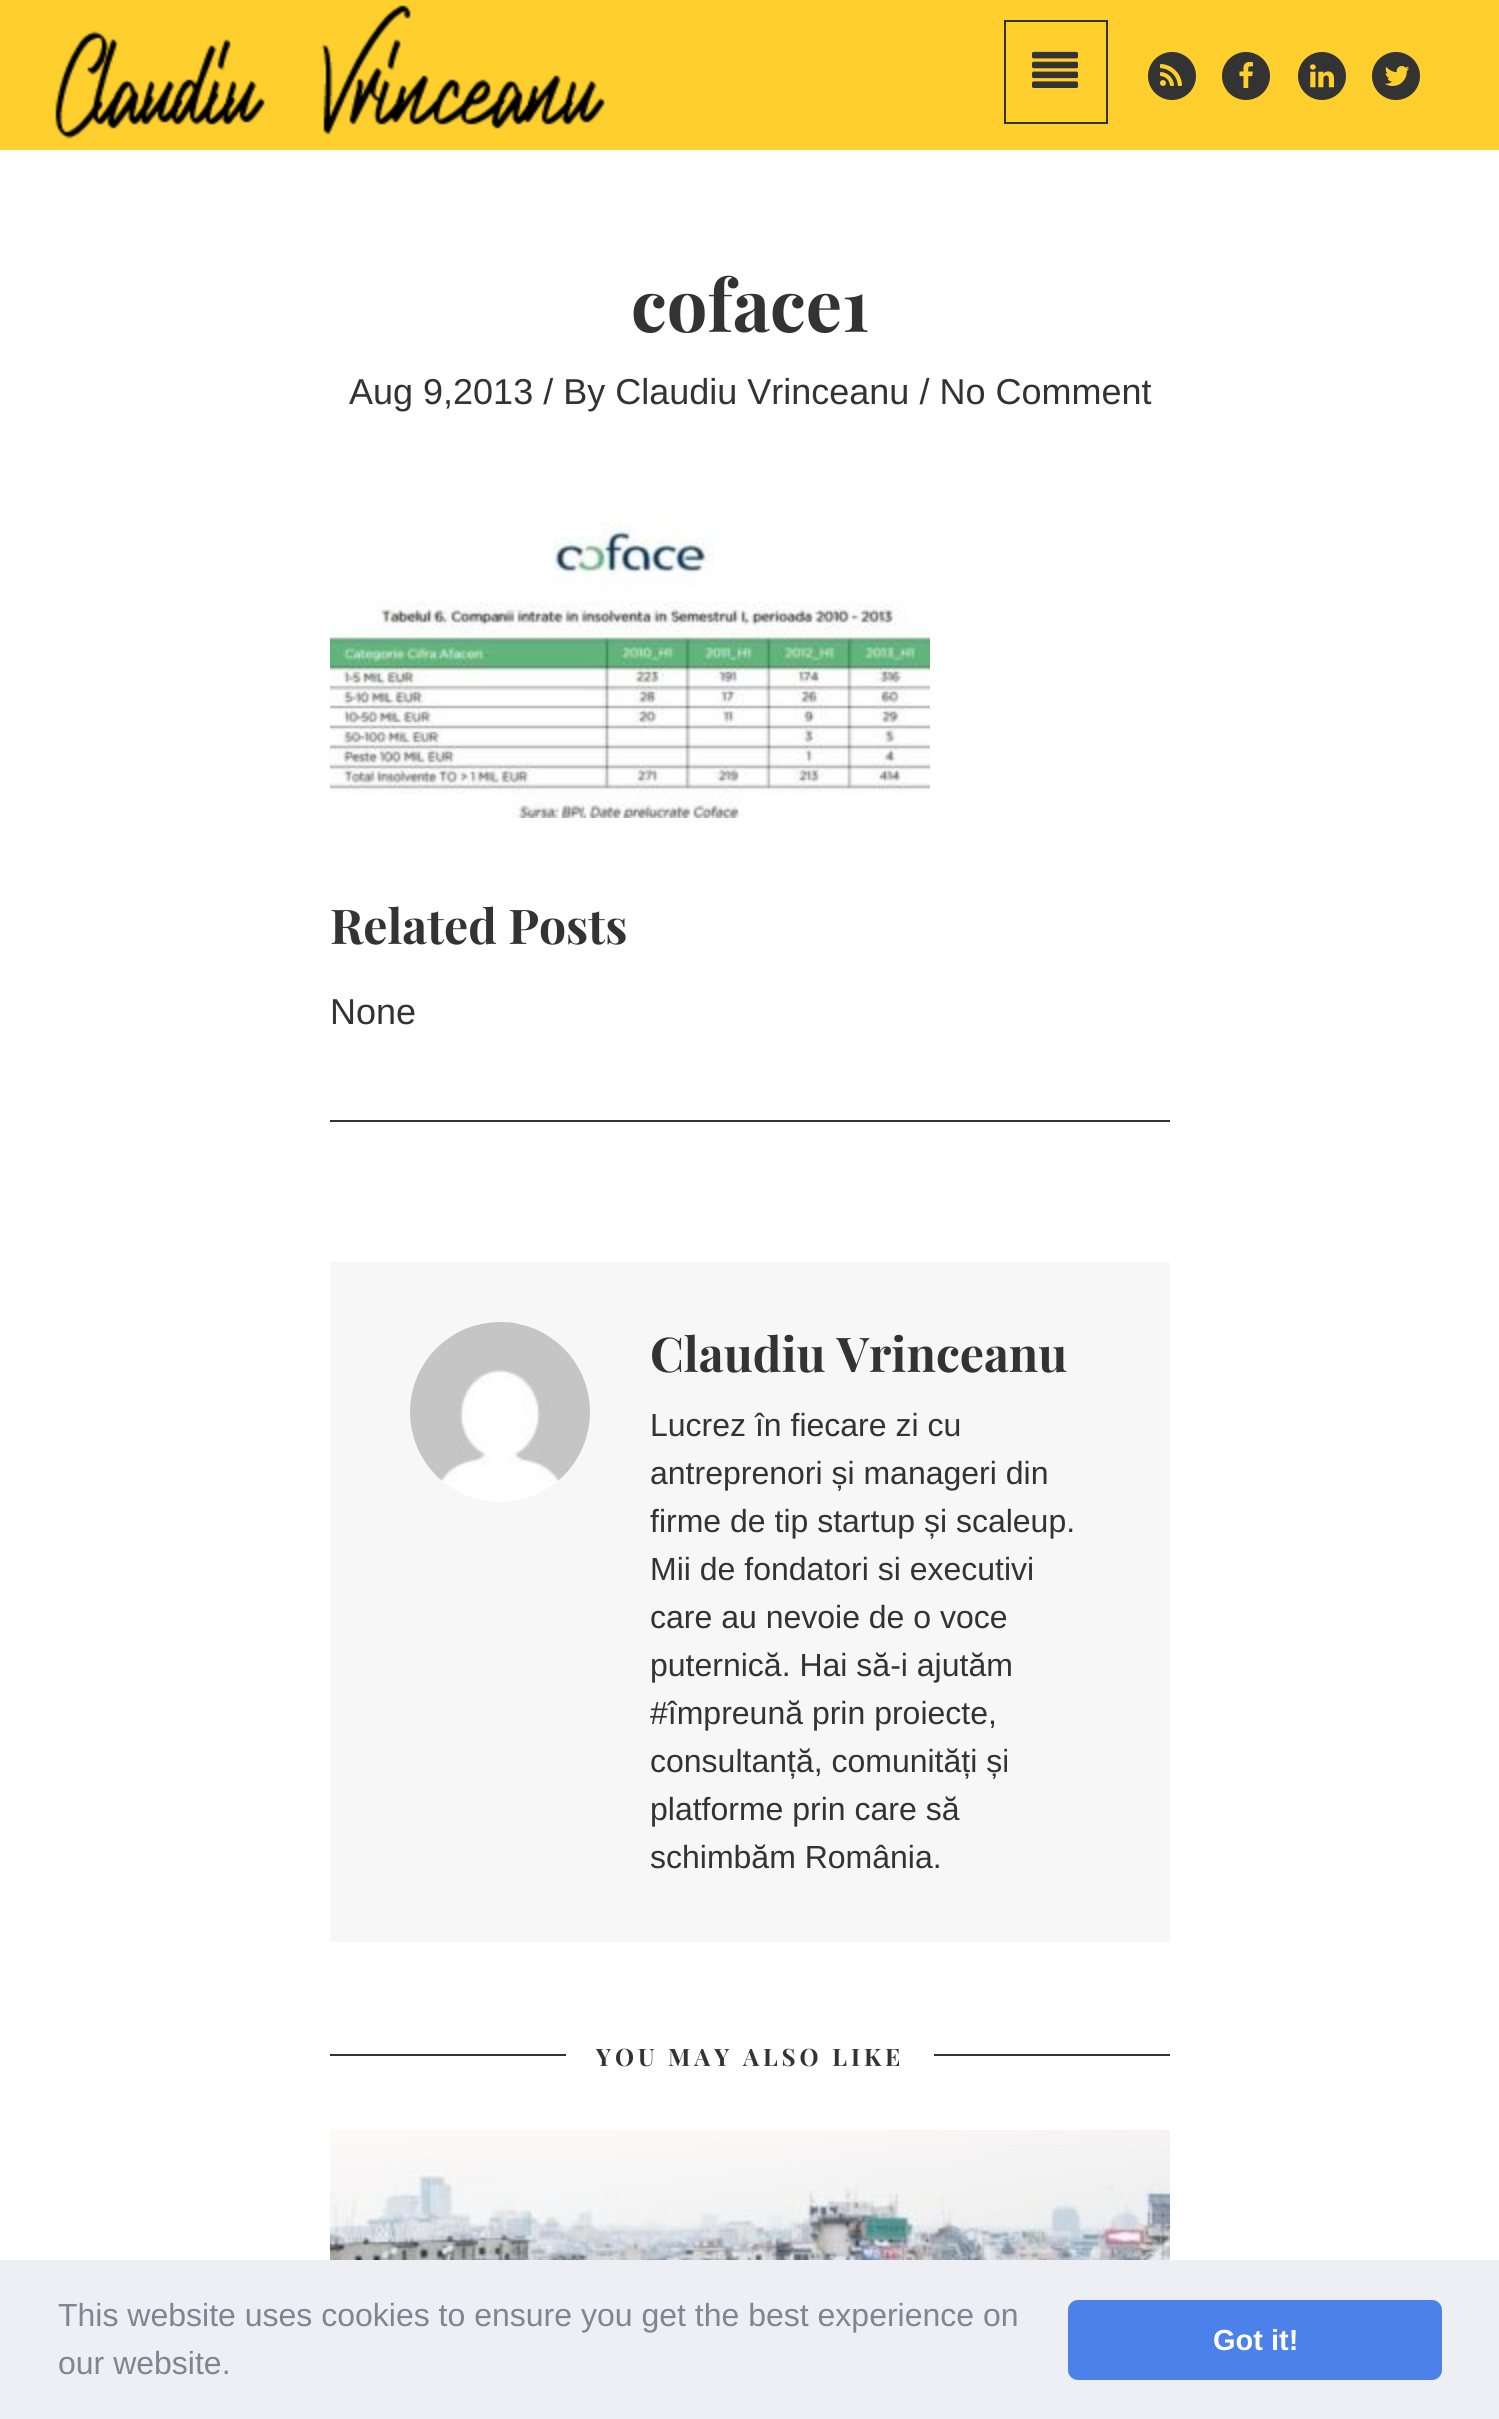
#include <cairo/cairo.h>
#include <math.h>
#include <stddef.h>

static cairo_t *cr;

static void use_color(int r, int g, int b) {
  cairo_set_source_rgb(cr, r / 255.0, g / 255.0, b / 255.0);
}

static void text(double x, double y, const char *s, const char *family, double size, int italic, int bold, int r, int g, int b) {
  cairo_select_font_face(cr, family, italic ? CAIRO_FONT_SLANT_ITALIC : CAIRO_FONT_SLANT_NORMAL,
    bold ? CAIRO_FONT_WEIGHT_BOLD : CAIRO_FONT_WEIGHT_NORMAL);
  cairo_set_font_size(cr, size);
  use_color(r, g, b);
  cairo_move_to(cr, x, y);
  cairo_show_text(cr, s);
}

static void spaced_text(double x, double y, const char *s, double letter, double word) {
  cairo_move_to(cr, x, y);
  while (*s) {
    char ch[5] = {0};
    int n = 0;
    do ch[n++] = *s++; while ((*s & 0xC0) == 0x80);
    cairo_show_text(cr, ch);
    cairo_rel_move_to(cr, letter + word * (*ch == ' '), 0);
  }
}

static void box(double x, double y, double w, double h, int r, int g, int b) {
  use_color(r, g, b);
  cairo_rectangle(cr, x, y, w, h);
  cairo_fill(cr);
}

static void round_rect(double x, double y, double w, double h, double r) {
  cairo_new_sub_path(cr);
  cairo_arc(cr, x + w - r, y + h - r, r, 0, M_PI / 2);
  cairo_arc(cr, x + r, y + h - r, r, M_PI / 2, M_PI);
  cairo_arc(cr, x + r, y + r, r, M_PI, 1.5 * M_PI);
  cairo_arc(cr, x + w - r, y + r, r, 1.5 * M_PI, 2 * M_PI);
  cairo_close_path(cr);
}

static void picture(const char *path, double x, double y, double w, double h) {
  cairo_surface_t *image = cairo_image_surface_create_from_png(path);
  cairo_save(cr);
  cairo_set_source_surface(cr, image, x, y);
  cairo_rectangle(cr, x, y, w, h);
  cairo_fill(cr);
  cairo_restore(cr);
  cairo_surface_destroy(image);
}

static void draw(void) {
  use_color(255, 255, 255);
  cairo_paint(cr);
  box(0, 0, 1499, 150, 255, 208, 45);
  picture("img_01.png", 55, 5, 550, 134);
  cairo_rectangle(cr, 1005, 21, 102, 102);
  use_color(51, 51, 51);
  cairo_stroke(cr);
  picture("img_02.png", 1032, 51, 46, 37);
  cairo_arc(cr, 1172, 76, 24, 0, 2 * M_PI);
  cairo_fill(cr);
  picture("img_03.png", 1160, 64, 22, 22);
  cairo_arc(cr, 1246, 76, 24, 0, 2 * M_PI);
  cairo_fill(cr);
  picture("img_04.png", 1239, 62, 14, 26);
  cairo_arc(cr, 1322, 76, 24, 0, 2 * M_PI);
  cairo_fill(cr);
  picture("img_05.png", 1310, 64, 24, 24);
  cairo_arc(cr, 1396, 76, 24, 0, 2 * M_PI);
  cairo_fill(cr);
  picture("img_06.png", 1384, 66, 26, 20);
  box(330, 1120, 840, 2, 51, 51, 51);
  picture("img_07.png", 330, 522, 600, 296);
  box(330, 1262, 840, 680, 247, 247, 247);
  picture("img_08.png", 410, 1322, 180, 180);
  box(330, 2054, 840, 2, 51, 51, 51);
  box(566, 2054, 368, 2, 255, 255, 255);
  picture("img_09.png", 330, 2130, 840, 130);
  box(0, 2260, 1499, 159, 237, 239, 245);
  use_color(75, 129, 232);
  round_rect(1068, 2300, 374, 80, 10);
  cairo_fill(cr);
  text(631, 332, "coface1", "Playfair Display", 72, 0, 1, 51, 51, 51);
  text(349, 404, "Aug 9,2013 / By Claudiu Vrinceanu / No Comment", "Liberation Sans", 36, 0, 0, 51, 51, 51);
  text(330, 944, "Related Posts", "Playfair Display", 48, 0, 1, 51, 51, 51);
  text(330, 1024, "None", "Liberation Sans", 36, 0, 0, 51, 51, 51);
  text(650, 1372, "Claudiu Vrinceanu", "Playfair Display", 48, 0, 1, 51, 51, 51);
  text(650, 1436, "Lucrez în fiecare zi cu", "Liberation Sans", 32, 0, 0, 51, 51, 51);
  text(650, 1484, "antreprenori și manageri din", "Liberation Sans", 32, 0, 0, 51, 51, 51);
  text(650, 1532, "firme de tip startup și scaleup.", "Liberation Sans", 32, 0, 0, 51, 51, 51);
  text(650, 1580, "Mii de fondatori si executivi", "Liberation Sans", 32, 0, 0, 51, 51, 51);
  text(650, 1628, "care au nevoie de o voce", "Liberation Sans", 32, 0, 0, 51, 51, 51);
  text(650, 1676, "puternică. Hai să-i ajutăm", "Liberation Sans", 32, 0, 0, 51, 51, 51);
  text(650, 1724, "#împreună prin proiecte,", "Liberation Sans", 32, 0, 0, 51, 51, 51);
  text(650, 1772, "consultanță, comunități și", "Liberation Sans", 32, 0, 0, 51, 51, 51);
  text(650, 1820, "platforme prin care să", "Liberation Sans", 32, 0, 0, 51, 51, 51);
  text(650, 1868, "schimbăm România.", "Liberation Sans", 32, 0, 0, 51, 51, 51);
  cairo_select_font_face(cr, "Playfair Display", CAIRO_FONT_SLANT_NORMAL, CAIRO_FONT_WEIGHT_BOLD);
  cairo_set_font_size(cr, 24);
  spaced_text(596, 2066, "YOU MAY ALSO LIKE", 4, 0);
  text(58, 2326, "This website uses cookies to ensure you get the best experience on", "Liberation Sans", 32, 0, 0, 131, 131, 145);
  text(58, 2374, "our website.", "Liberation Sans", 32, 0, 0, 131, 131, 145);
  text(1213, 2350, "Got it!", "Liberation Sans", 29, 0, 1, 255, 255, 255);
}

int main(void) {
  cairo_surface_t *surface = cairo_image_surface_create(CAIRO_FORMAT_RGB24, 1499, 2419);
  cr = cairo_create(surface);
  cairo_font_options_t *options = cairo_font_options_create();
  cairo_font_options_set_hint_metrics(options, CAIRO_HINT_METRICS_OFF);
  cairo_font_options_set_hint_style(options, CAIRO_HINT_STYLE_NONE);
  cairo_set_font_options(cr, options);
  cairo_set_miter_limit(cr, 4);
  draw();
  cairo_surface_write_to_png(surface, "out.png");
  cairo_font_options_destroy(options);
  cairo_destroy(cr);
  cairo_surface_destroy(surface);
  return 0;
}
